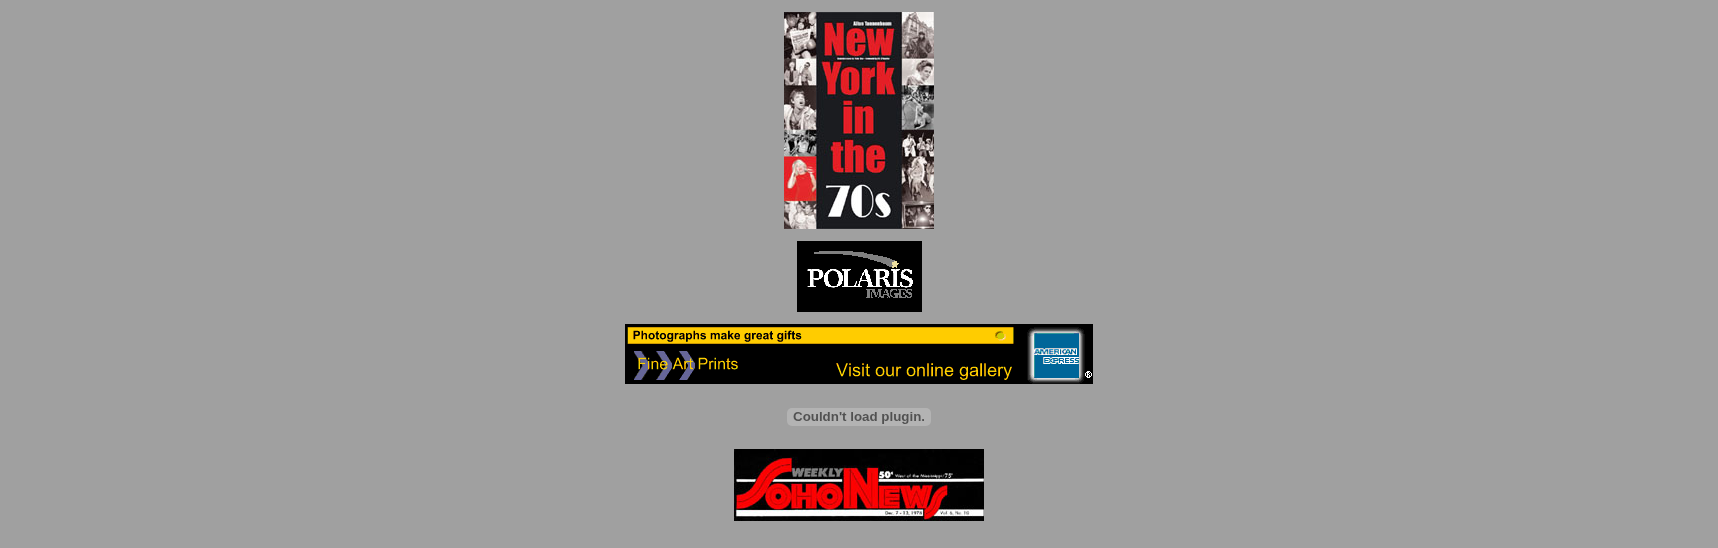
#include <cairo/cairo.h>
#include <math.h>
#include <stddef.h>

static cairo_t *cr;

static void use_color(int r, int g, int b) {
  cairo_set_source_rgb(cr, r / 255.0, g / 255.0, b / 255.0);
}

static void picture(const char *path, double x, double y, double w, double h) {
  cairo_surface_t *image = cairo_image_surface_create_from_png(path);
  cairo_save(cr);
  cairo_set_source_surface(cr, image, x, y);
  cairo_rectangle(cr, x, y, w, h);
  cairo_fill(cr);
  cairo_restore(cr);
  cairo_surface_destroy(image);
}

static void draw(void) {
  use_color(160, 160, 160);
  cairo_paint(cr);
  picture("img_01.png", 784, 12, 150, 217);
  picture("img_02.png", 797, 241, 125, 71);
  picture("img_03.png", 625, 324, 468, 60);
  picture("img_04.png", 787, 408, 144, 18);
  picture("img_05.png", 734, 449, 250, 72);
}

int main(void) {
  cairo_surface_t *surface = cairo_image_surface_create(CAIRO_FORMAT_RGB24, 1718, 548);
  cr = cairo_create(surface);
  cairo_font_options_t *options = cairo_font_options_create();
  cairo_font_options_set_hint_metrics(options, CAIRO_HINT_METRICS_OFF);
  cairo_font_options_set_hint_style(options, CAIRO_HINT_STYLE_NONE);
  cairo_set_font_options(cr, options);
  cairo_set_miter_limit(cr, 4);
  draw();
  cairo_surface_write_to_png(surface, "out.png");
  cairo_font_options_destroy(options);
  cairo_destroy(cr);
  cairo_surface_destroy(surface);
  return 0;
}
